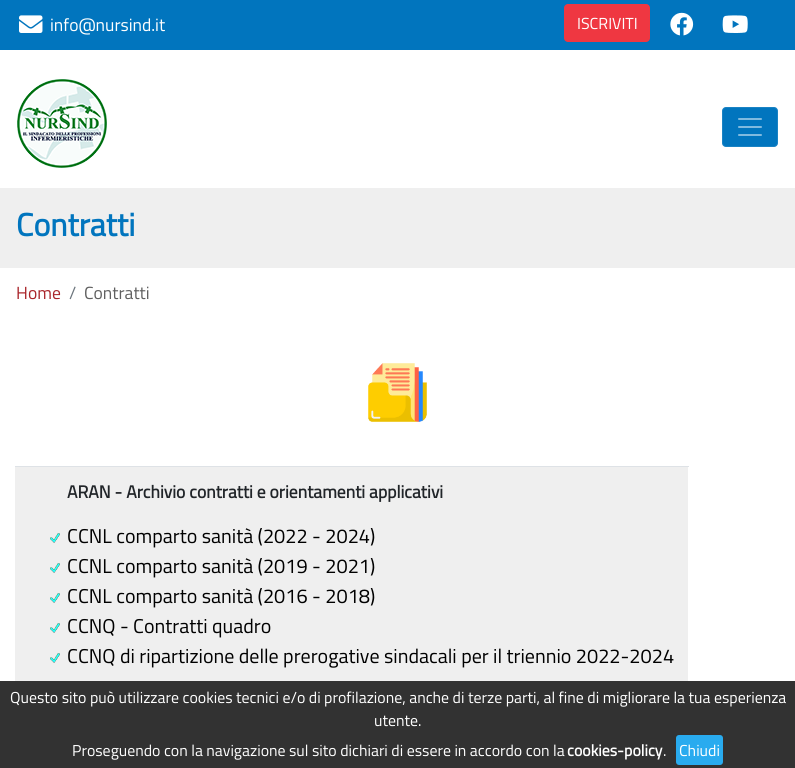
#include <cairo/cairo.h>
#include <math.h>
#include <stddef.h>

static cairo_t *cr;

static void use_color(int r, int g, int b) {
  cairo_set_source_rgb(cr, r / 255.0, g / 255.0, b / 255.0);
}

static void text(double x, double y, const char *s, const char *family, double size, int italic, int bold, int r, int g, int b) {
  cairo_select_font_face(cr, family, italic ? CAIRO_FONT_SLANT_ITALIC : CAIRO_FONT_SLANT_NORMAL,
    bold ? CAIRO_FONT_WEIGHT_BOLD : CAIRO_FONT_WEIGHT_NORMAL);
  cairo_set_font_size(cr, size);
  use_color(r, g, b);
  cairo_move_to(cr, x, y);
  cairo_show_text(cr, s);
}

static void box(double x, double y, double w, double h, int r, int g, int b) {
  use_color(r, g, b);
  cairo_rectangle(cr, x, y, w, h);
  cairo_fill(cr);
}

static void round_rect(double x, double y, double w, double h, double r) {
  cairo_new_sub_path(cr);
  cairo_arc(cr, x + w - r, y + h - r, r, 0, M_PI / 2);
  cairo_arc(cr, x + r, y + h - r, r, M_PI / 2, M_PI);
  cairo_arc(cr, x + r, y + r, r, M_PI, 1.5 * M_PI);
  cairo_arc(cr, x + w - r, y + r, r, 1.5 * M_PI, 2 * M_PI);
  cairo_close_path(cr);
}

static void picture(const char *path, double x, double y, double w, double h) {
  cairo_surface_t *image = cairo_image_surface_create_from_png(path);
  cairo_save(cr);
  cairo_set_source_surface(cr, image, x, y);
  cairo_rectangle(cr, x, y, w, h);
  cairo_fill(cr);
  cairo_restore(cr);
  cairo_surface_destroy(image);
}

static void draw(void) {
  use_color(255, 255, 255);
  cairo_paint(cr);
  box(0, 0, 795, 50, 1, 117, 190);
  picture("img_01.png", 19, 15, 24, 18);
  use_color(239, 55, 65);
  round_rect(564, 4, 86, 38, 4);
  cairo_fill(cr);
  picture("img_02.png", 670, 12, 24, 24);
  picture("img_03.png", 722, 15, 26, 18);
  picture("img_04.png", 17, 79, 90, 89);
  use_color(1, 117, 190);
  round_rect(722, 107, 56, 40, 4);
  cairo_fill(cr);
  round_rect(722.5, 107.5, 55, 39, 3.5);
  cairo_set_source_rgba(cr, 1, 1, 1, 0.1);
  cairo_set_line_width(cr, 1);
  cairo_stroke(cr);
  picture("img_05.png", 738, 118, 24, 18);
  box(0, 681, 795, 87, 50, 50, 50);
  use_color(41, 171, 239);
  round_rect(676, 735, 47, 30, 3);
  cairo_fill(cr);
  box(0, 188, 795, 80, 239, 239, 239);
  picture("img_06.png", 368, 363, 59, 59);
  box(15, 467, 673, 214, 239, 239, 239);
  box(15, 466, 674, 1, 222, 226, 230);
  picture("img_07.png", 50, 533, 10, 10);
  picture("img_07.png", 50, 563, 10, 10);
  picture("img_07.png", 50, 593, 10, 10);
  picture("img_07.png", 50, 623, 10, 10);
  picture("img_07.png", 50, 653, 10, 10);
  text(50, 31, "info@nursind.it", "Titillium Web", 17.6, 0, 0, 255, 255, 255);
  text(577, 29, "ISCRIVITI", "Titillium Web", 16, 0, 0, 255, 255, 255);
  text(10, 703, "Questo sito può utilizzare cookies tecnici e/o di profilazione, anche di terze parti, al fine di migliorare la tua esperienza", "Titillium Web", 15.85, 0, 0, 255, 255, 255);
  text(374, 726, "utente.", "Titillium Web", 15.85, 0, 0, 255, 255, 255);
  text(72, 756, "Proseguendo con la navigazione sul sito dichiari di essere in accordo con la", "Titillium Web", 15.85, 0, 0, 255, 255, 255);
  text(567, 756, "cookies-policy", "Titillium Web", 15.85, 0, 1, 255, 255, 255);
  text(663, 756, ".", "Titillium Web", 15.85, 0, 0, 255, 255, 255);
  text(679, 756, "Chiudi", "Titillium Web", 15.85, 0, 0, 255, 255, 255);
  text(16, 236, "Contratti", "Titillium Web", 32, 0, 1, 1, 117, 190);
  text(16, 299, "Home", "Titillium Web", 17.6, 0, 0, 169, 36, 41);
  text(69, 299, "/", "Titillium Web", 17.6, 0, 0, 108, 117, 125);
  text(84, 299, "Contratti", "Titillium Web", 17.6, 0, 0, 95, 95, 95);
  text(67, 498, "ARAN - Archivio contratti e orientamenti applicativi", "Titillium Web", 17.6, 0, 1, 33, 37, 41);
  text(67, 543, "CCNL comparto sanità (2022 - 2024)", "Titillium Web", 20, 0, 0, 0, 0, 0);
  text(67, 573, "CCNL comparto sanità (2019 - 2021)", "Titillium Web", 20, 0, 0, 0, 0, 0);
  text(67, 603, "CCNL comparto sanità (2016 - 2018)", "Titillium Web", 20, 0, 0, 0, 0, 0);
  text(67, 633, "CCNQ - Contratti quadro", "Titillium Web", 20, 0, 0, 0, 0, 0);
  text(67, 663, "CCNQ di ripartizione delle prerogative sindacali per il triennio 2022-2024", "Titillium Web", 20, 0, 0, 0, 0, 0);
}

int main(void) {
  cairo_surface_t *surface = cairo_image_surface_create(CAIRO_FORMAT_RGB24, 795, 768);
  cr = cairo_create(surface);
  cairo_font_options_t *options = cairo_font_options_create();
  cairo_font_options_set_hint_metrics(options, CAIRO_HINT_METRICS_OFF);
  cairo_font_options_set_hint_style(options, CAIRO_HINT_STYLE_NONE);
  cairo_set_font_options(cr, options);
  cairo_set_miter_limit(cr, 4);
  draw();
  cairo_surface_write_to_png(surface, "out.png");
  cairo_font_options_destroy(options);
  cairo_destroy(cr);
  cairo_surface_destroy(surface);
  return 0;
}
